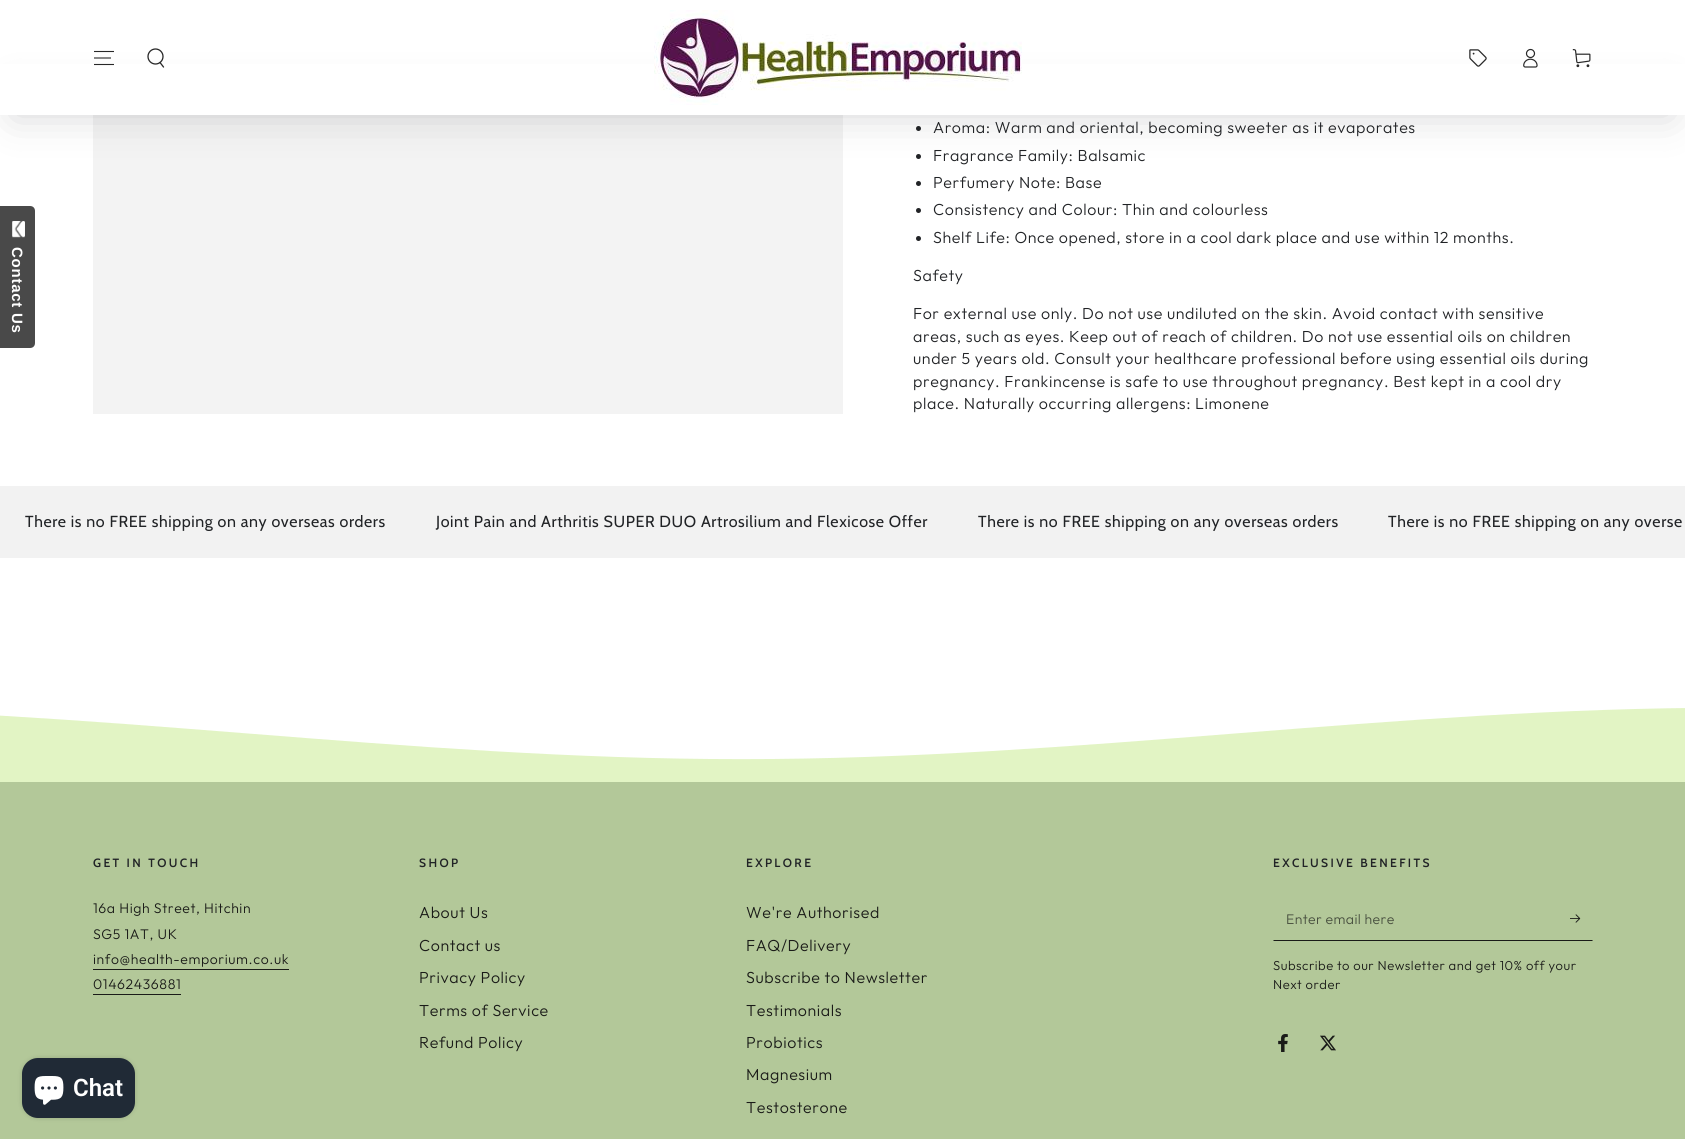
#include <cairo/cairo.h>
#include <math.h>
#include <stddef.h>

static cairo_t *cr;

static void use_color(int r, int g, int b) {
  cairo_set_source_rgb(cr, r / 255.0, g / 255.0, b / 255.0);
}

static void text(double x, double y, const char *s, const char *family, double size, int italic, int bold, int r, int g, int b) {
  cairo_select_font_face(cr, family, italic ? CAIRO_FONT_SLANT_ITALIC : CAIRO_FONT_SLANT_NORMAL,
    bold ? CAIRO_FONT_WEIGHT_BOLD : CAIRO_FONT_WEIGHT_NORMAL);
  cairo_set_font_size(cr, size);
  use_color(r, g, b);
  cairo_move_to(cr, x, y);
  cairo_show_text(cr, s);
}

static void spaced_text(double x, double y, const char *s, double letter, double word) {
  cairo_move_to(cr, x, y);
  while (*s) {
    char ch[5] = {0};
    int n = 0;
    do ch[n++] = *s++; while ((*s & 0xC0) == 0x80);
    cairo_show_text(cr, ch);
    cairo_rel_move_to(cr, letter + word * (*ch == ' '), 0);
  }
}

static void box(double x, double y, double w, double h, int r, int g, int b) {
  use_color(r, g, b);
  cairo_rectangle(cr, x, y, w, h);
  cairo_fill(cr);
}

static void round_rect(double x, double y, double w, double h, double r) {
  cairo_new_sub_path(cr);
  cairo_arc(cr, x + w - r, y + h - r, r, 0, M_PI / 2);
  cairo_arc(cr, x + r, y + h - r, r, M_PI / 2, M_PI);
  cairo_arc(cr, x + r, y + r, r, M_PI, 1.5 * M_PI);
  cairo_arc(cr, x + w - r, y + r, r, 1.5 * M_PI, 2 * M_PI);
  cairo_close_path(cr);
}

static void shadow(double x, double y, double w, double h, double r, double blur, double alpha) {
  cairo_push_group_with_content(cr, CAIRO_CONTENT_ALPHA);
  cairo_set_operator(cr, CAIRO_OPERATOR_SOURCE);
  for (int i = 15; i >= -15 && fmin(w, h) + blur * i / 3 > 0; i -= 2) {
    double e = blur * i / 6;
    cairo_set_source_rgba(cr, 0, 0, 0, alpha * erfc((i - 1) / 8.5) / 2);
    round_rect(x - e, y - e, w + 2 * e, h + 2 * e, fmax(0, fmin(r + e + blur * .6, fmin(w, h) / 2 + e)));
    cairo_fill(cr);
  }
  cairo_pattern_t *soft = cairo_pop_group(cr);
  cairo_mask(cr, soft);
  cairo_pattern_destroy(soft);
}

static void picture(const char *path, double x, double y, double w, double h) {
  cairo_surface_t *image = cairo_image_surface_create_from_png(path);
  cairo_save(cr);
  cairo_set_source_surface(cr, image, x, y);
  cairo_rectangle(cr, x, y, w, h);
  cairo_fill(cr);
  cairo_restore(cr);
  cairo_surface_destroy(image);
}

static void draw(void) {
  use_color(255, 255, 255);
  cairo_paint(cr);
  use_color(73, 73, 73);
  cairo_new_path(cr);
  cairo_move_to(cr, 35, 211);
  cairo_line_to(cr, 35, 343);
  cairo_curve_to(cr, 35, 346, 33, 348, 30, 348);
  cairo_line_to(cr, 0, 348);
  cairo_line_to(cr, 0, 206);
  cairo_line_to(cr, 30, 206);
  cairo_curve_to(cr, 33, 206, 35, 208, 35, 211);
  cairo_close_path(cr);
  cairo_fill(cr);
  picture("img_01.png", 12, 221, 13, 17);
  box(93, 115, 750, 299, 243, 243, 243);
  use_color(33, 35, 38);
  cairo_arc(cr, 918.5, 128.5, 2.5, 0, 2 * M_PI);
  cairo_fill(cr);
  cairo_arc(cr, 918.5, 156.5, 2.5, 0, 2 * M_PI);
  cairo_fill(cr);
  use_color(33, 35, 38);
  shadow(15, 95, 1655, 20, 10, 20, 0.2);
  box(0, 64, 1685, 51, 255, 255, 255);
  picture("img_02.png", 654, 10, 368, 95);
  cairo_new_path(cr);
  cairo_move_to(cr, 94, 64.5);
  cairo_line_to(cr, 114, 64.5);
  cairo_move_to(cr, 94, 58);
  cairo_line_to(cr, 111, 58);
  cairo_move_to(cr, 94, 51.5);
  cairo_line_to(cr, 114, 51.5);
  use_color(40, 40, 40);
  cairo_set_line_width(cr, 1.1);
  cairo_stroke(cr);
  cairo_arc(cr, 155.5, 56.5, 7.5, 0, 2 * M_PI);
  cairo_set_line_width(cr, 1.3);
  cairo_stroke(cr);
  cairo_new_path(cr);
  cairo_move_to(cr, 160, 62.5);
  cairo_line_to(cr, 163.5, 67);
  cairo_set_line_cap(cr, CAIRO_LINE_CAP_ROUND);
  cairo_stroke(cr);
  picture("img_03.png", 1469, 49, 18, 18);
  picture("img_04.png", 1523, 48, 15, 20);
  picture("img_05.png", 1572, 49, 19, 19);
  use_color(33, 35, 38);
  cairo_arc(cr, 918.5, 183.5, 2.5, 0, 2 * M_PI);
  cairo_fill(cr);
  cairo_arc(cr, 918.5, 210.5, 2.5, 0, 2 * M_PI);
  cairo_fill(cr);
  cairo_arc(cr, 918.5, 238.5, 2.5, 0, 2 * M_PI);
  cairo_fill(cr);
  box(0, 486, 1685, 72, 242, 242, 242);
  picture("img_06.png", 0, 708, 1685, 74);
  box(0, 782, 1685, 357, 179, 200, 153);
  box(93, 969, 196, 1, 26, 27, 24);
  box(93, 994, 88, 1, 26, 27, 24);
  cairo_new_path(cr);
  cairo_move_to(cr, 1593, 941);
  cairo_line_to(cr, 1273, 941);
  cairo_line_to(cr, 1274, 940);
  cairo_line_to(cr, 1592, 940);
  cairo_close_path(cr);
  cairo_fill(cr);
  picture("img_07.png", 1570, 914, 11, 9);
  picture("img_08.png", 1278, 1034, 10, 18);
  picture("img_09.png", 1320, 1035, 16, 16);
  use_color(0, 0, 0);
  shadow(22, 1058, 113, 60, 16, 2.5, 0.15);
  use_color(32, 42, 54);
  round_rect(22, 1058, 113, 60, 16);
  cairo_fill(cr);
  picture("img_10.png", 34, 1076, 30, 29);
  cairo_select_font_face(cr, "Liberation Sans", CAIRO_FONT_SLANT_NORMAL, CAIRO_FONT_WEIGHT_BOLD);
  cairo_set_font_size(cr, 15);
  use_color(255, 255, 255);
  cairo_save(cr);
  cairo_translate(cr, 12, 247);
  cairo_rotate(cr, 90 * M_PI / 180);
  spaced_text(0, 0, "Contact Us", 0.75, 0);
  cairo_restore(cr);
  cairo_select_font_face(cr, "Outfit Light", CAIRO_FONT_SLANT_NORMAL, CAIRO_FONT_WEIGHT_NORMAL);
  cairo_set_font_size(cr, 16);
  use_color(33, 35, 38);
  spaced_text(933, 133, "Aroma: Warm and oriental, becoming sweeter as it evaporates", 0.6, 0);
  spaced_text(933, 161, "Fragrance Family: Balsamic", 0.6, 0);
  spaced_text(933, 188, "Perfumery Note: Base", 0.6, 0);
  spaced_text(933, 215, "Consistency and Colour: Thin and colourless", 0.6, 0);
  spaced_text(933, 243, "Shelf Life: Once opened, store in a cool dark place and use within 12 months.", 0.6, 0);
  spaced_text(913, 281, "Safety", 0.6, 0);
  spaced_text(913, 319, "For external use only. Do not use undiluted on the skin. Avoid contact with sensitive", 0.6, 0);
  spaced_text(913, 342, "areas, such as eyes. Keep out of reach of children. Do not use essential oils on children", 0.6, 0);
  spaced_text(913, 364, "under 5 years old. Consult your healthcare professional before using essential oils during", 0.6, 0);
  spaced_text(913, 387, "pregnancy. Frankincense is safe to use throughout pregnancy. Best kept in a cool dry", 0.6, 0);
  spaced_text(913, 409, "place. Naturally occurring allergens: Limonene", 0.6, 0);
  cairo_select_font_face(cr, "Cabin", CAIRO_FONT_SLANT_NORMAL, CAIRO_FONT_WEIGHT_NORMAL);
  spaced_text(25, 527, "There is no FREE shipping on any overseas orders", 0.6, 0);
  spaced_text(436, 527, "Joint Pain and Arthritis SUPER DUO Artrosilium and Flexicose Offer", 0.6, 0);
  spaced_text(978, 527, "There is no FREE shipping on any overseas orders", 0.6, 0);
  spaced_text(1388, 527, "There is no FREE shipping on any overse", 0.6, 0);
  cairo_select_font_face(cr, "Cabin SemiBold", CAIRO_FONT_SLANT_NORMAL, CAIRO_FONT_WEIGHT_NORMAL);
  cairo_set_font_size(cr, 12);
  spaced_text(93, 867, "GET IN TOUCH", 2.4, 0);
  cairo_select_font_face(cr, "Outfit Light", CAIRO_FONT_SLANT_NORMAL, CAIRO_FONT_WEIGHT_NORMAL);
  cairo_set_font_size(cr, 14);
  use_color(26, 27, 24);
  spaced_text(93, 913, "16a High Street, Hitchin", 0.6, 0);
  spaced_text(93, 939, "SG5 1AT, UK", 0.6, 0);
  spaced_text(93, 964, "info@health-emporium.co.uk", 0.6, 0);
  spaced_text(93, 989, "01462436881", 0.6, 0);
  cairo_select_font_face(cr, "Cabin SemiBold", CAIRO_FONT_SLANT_NORMAL, CAIRO_FONT_WEIGHT_NORMAL);
  cairo_set_font_size(cr, 12);
  use_color(33, 35, 38);
  spaced_text(419, 867, "SHOP", 2.4, 0);
  cairo_select_font_face(cr, "Outfit Light", CAIRO_FONT_SLANT_NORMAL, CAIRO_FONT_WEIGHT_NORMAL);
  cairo_set_font_size(cr, 16);
  use_color(26, 27, 24);
  spaced_text(419, 918, "About Us", 0.6, 0);
  spaced_text(419, 951, "Contact us", 0.6, 0);
  spaced_text(419, 983, "Privacy Policy", 0.6, 0);
  spaced_text(419, 1016, "Terms of Service", 0.6, 0);
  spaced_text(419, 1048, "Refund Policy", 0.6, 0);
  cairo_select_font_face(cr, "Cabin SemiBold", CAIRO_FONT_SLANT_NORMAL, CAIRO_FONT_WEIGHT_NORMAL);
  cairo_set_font_size(cr, 12);
  use_color(33, 35, 38);
  spaced_text(746, 867, "EXPLORE", 2.4, 0);
  cairo_select_font_face(cr, "Outfit Light", CAIRO_FONT_SLANT_NORMAL, CAIRO_FONT_WEIGHT_NORMAL);
  cairo_set_font_size(cr, 16);
  use_color(26, 27, 24);
  spaced_text(746, 918, "We're Authorised", 0.6, 0);
  spaced_text(746, 951, "FAQ/Delivery", 0.6, 0);
  spaced_text(746, 983, "Subscribe to Newsletter", 0.6, 0);
  spaced_text(746, 1016, "Testimonials", 0.6, 0);
  spaced_text(746, 1048, "Probiotics", 0.6, 0);
  spaced_text(746, 1080, "Magnesium", 0.6, 0);
  spaced_text(746, 1113, "Testosterone", 0.6, 0);
  cairo_select_font_face(cr, "Cabin SemiBold", CAIRO_FONT_SLANT_NORMAL, CAIRO_FONT_WEIGHT_NORMAL);
  cairo_set_font_size(cr, 12);
  use_color(33, 35, 38);
  spaced_text(1273, 867, "EXCLUSIVE BENEFITS", 2.4, 0);
  cairo_select_font_face(cr, "Outfit Light", CAIRO_FONT_SLANT_NORMAL, CAIRO_FONT_WEIGHT_NORMAL);
  cairo_set_font_size(cr, 14);
  use_color(72, 79, 63);
  spaced_text(1286, 924, "Enter email here", 0.4, 0);
  cairo_set_font_size(cr, 13);
  use_color(26, 27, 24);
  spaced_text(1273, 970, "Subscribe to our Newsletter and get 10% off your", 0.5, 0);
  spaced_text(1273, 989, "Next order", 0.5, 0);
  text(73, 1096, "Chat", "Roboto SemiBold", 24, 0, 0, 255, 255, 255);
}

int main(void) {
  cairo_surface_t *surface = cairo_image_surface_create(CAIRO_FORMAT_RGB24, 1685, 1139);
  cr = cairo_create(surface);
  cairo_font_options_t *options = cairo_font_options_create();
  cairo_font_options_set_hint_metrics(options, CAIRO_HINT_METRICS_OFF);
  cairo_font_options_set_hint_style(options, CAIRO_HINT_STYLE_NONE);
  cairo_set_font_options(cr, options);
  cairo_set_miter_limit(cr, 4);
  draw();
  cairo_surface_write_to_png(surface, "out.png");
  cairo_font_options_destroy(options);
  cairo_destroy(cr);
  cairo_surface_destroy(surface);
  return 0;
}
